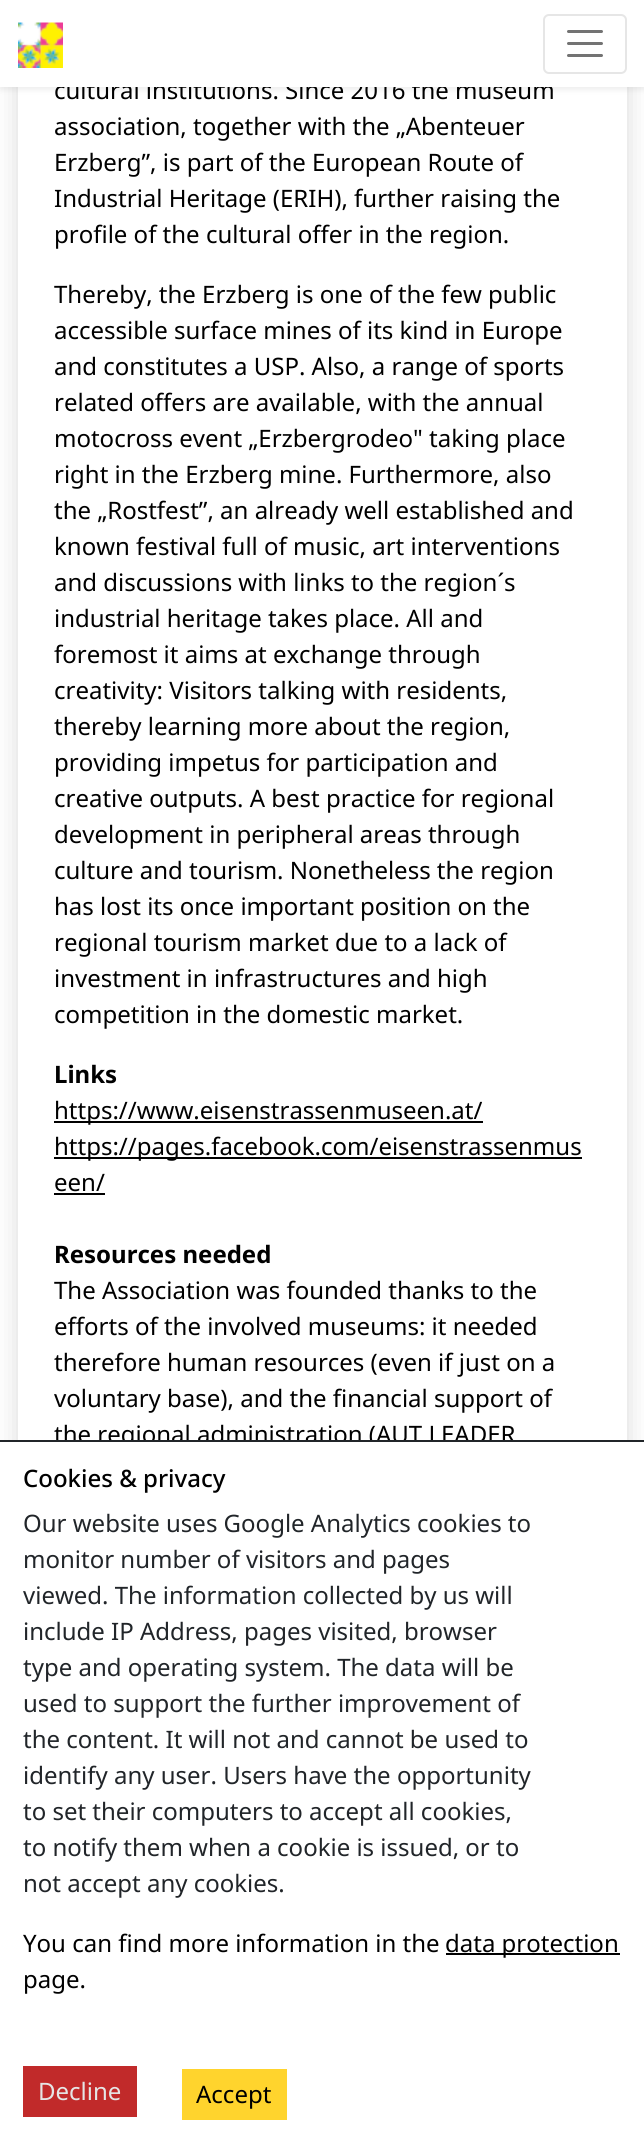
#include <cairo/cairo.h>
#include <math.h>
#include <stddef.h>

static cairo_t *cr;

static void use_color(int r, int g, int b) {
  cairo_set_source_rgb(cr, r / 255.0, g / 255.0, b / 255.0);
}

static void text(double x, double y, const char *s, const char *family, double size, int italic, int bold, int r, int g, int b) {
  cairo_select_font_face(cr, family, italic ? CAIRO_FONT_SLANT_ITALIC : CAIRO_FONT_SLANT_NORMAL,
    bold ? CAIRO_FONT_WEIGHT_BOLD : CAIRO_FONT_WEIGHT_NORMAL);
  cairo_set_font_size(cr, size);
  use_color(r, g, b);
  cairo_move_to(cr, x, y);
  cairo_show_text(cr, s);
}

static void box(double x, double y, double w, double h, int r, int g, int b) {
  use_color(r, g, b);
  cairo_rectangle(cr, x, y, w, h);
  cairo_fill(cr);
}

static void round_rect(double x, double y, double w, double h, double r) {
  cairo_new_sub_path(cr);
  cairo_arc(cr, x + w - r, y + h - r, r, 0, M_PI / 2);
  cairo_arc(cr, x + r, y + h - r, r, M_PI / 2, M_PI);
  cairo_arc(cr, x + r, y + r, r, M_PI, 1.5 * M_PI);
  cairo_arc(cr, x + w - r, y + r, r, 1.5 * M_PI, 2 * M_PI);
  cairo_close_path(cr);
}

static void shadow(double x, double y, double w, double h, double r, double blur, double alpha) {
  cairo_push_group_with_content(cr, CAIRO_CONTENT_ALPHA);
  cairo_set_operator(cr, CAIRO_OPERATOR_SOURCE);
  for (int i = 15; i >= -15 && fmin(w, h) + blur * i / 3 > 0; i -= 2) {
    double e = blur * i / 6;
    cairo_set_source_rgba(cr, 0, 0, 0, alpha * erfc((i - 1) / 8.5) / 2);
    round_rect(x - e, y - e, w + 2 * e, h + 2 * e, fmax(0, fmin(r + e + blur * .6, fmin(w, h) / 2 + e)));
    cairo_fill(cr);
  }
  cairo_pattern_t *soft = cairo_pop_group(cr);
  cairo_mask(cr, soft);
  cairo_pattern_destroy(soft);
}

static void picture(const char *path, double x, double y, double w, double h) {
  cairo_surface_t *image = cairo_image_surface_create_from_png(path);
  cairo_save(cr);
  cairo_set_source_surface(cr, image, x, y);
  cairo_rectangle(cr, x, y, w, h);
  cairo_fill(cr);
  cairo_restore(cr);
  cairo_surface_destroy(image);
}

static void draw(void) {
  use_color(255, 255, 255);
  cairo_paint(cr);
  use_color(0, 0, 0);
  shadow(0, 3, 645, 87, 0, 3, 0.07);
  cairo_save(cr);
  cairo_set_fill_rule(cr, CAIRO_FILL_RULE_EVEN_ODD);
  cairo_new_path(cr);
  cairo_move_to(cr, 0, 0);
  cairo_line_to(cr, 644, 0);
  cairo_line_to(cr, 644, 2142);
  cairo_line_to(cr, 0, 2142);
  cairo_close_path(cr);
  cairo_move_to(cr, 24, -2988);
  cairo_line_to(cr, 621, -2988);
  cairo_curve_to(cr, 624.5, -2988, 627, -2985.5, 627, -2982);
  cairo_line_to(cr, 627, 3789);
  cairo_curve_to(cr, 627, 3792.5, 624.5, 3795, 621, 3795);
  cairo_line_to(cr, 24, 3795);
  cairo_curve_to(cr, 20.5, 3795, 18, 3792.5, 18, 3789);
  cairo_line_to(cr, 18, -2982);
  cairo_curve_to(cr, 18, -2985.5, 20.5, -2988, 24, -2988);
  cairo_close_path(cr);
  cairo_clip(cr);
  shadow(18, -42, 609, 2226, 6, 12, 0.15);
  cairo_restore(cr);
  box(54, 1121, 429, 2, 0, 0, 0);
  box(54, 1157, 528, 2, 0, 0, 0);
  box(54, 1193, 51, 2, 0, 0, 0);
  text(54, 99, "cultural institutions. Since 2016 the museum", "Noto Sans", 24, 0, 0, 0, 0, 0);
  box(0, 0, 644, 87, 255, 255, 255);
  round_rect(544, 15, 82, 58, 5);
  use_color(230, 230, 230);
  cairo_stroke(cr);
  cairo_new_path(cr);
  cairo_move_to(cr, 568.5, 31.5);
  cairo_line_to(cr, 601.5, 31.5);
  cairo_move_to(cr, 568.5, 43.5);
  cairo_line_to(cr, 601.5, 43.5);
  cairo_move_to(cr, 568.5, 55.5);
  cairo_line_to(cr, 601.5, 55.5);
  use_color(115, 115, 115);
  cairo_set_line_width(cr, 3);
  cairo_set_line_cap(cr, CAIRO_LINE_CAP_ROUND);
  cairo_stroke(cr);
  picture("img_01.png", 18, 22, 45, 46);
  text(54, 135, "association, together with the „Abenteuer", "Noto Sans", 24, 0, 0, 0, 0, 0);
  text(54, 171, "Erzberg”, is part of the European Route of", "Noto Sans", 24, 0, 0, 0, 0, 0);
  text(54, 207, "Industrial Heritage (ERIH), further raising the", "Noto Sans", 24, 0, 0, 0, 0, 0);
  text(54, 243, "profile of the cultural offer in the region.", "Noto Sans", 24, 0, 0, 0, 0, 0);
  text(54, 303, "Thereby, the Erzberg is one of the few public", "Noto Sans", 24, 0, 0, 0, 0, 0);
  text(54, 339, "accessible surface mines of its kind in Europe", "Noto Sans", 24, 0, 0, 0, 0, 0);
  text(54, 375, "and constitutes a USP. Also, a range of sports", "Noto Sans", 24, 0, 0, 0, 0, 0);
  text(54, 411, "related offers are available, with the annual", "Noto Sans", 24, 0, 0, 0, 0, 0);
  text(54, 447, "motocross event „Erzbergrodeo\" taking place", "Noto Sans", 24, 0, 0, 0, 0, 0);
  text(54, 483, "right in the Erzberg mine. Furthermore, also", "Noto Sans", 24, 0, 0, 0, 0, 0);
  text(54, 519, "the „Rostfest”, an already well established and", "Noto Sans", 24, 0, 0, 0, 0, 0);
  text(54, 555, "known festival full of music, art interventions", "Noto Sans", 24, 0, 0, 0, 0, 0);
  text(54, 591, "and discussions with links to the region´s", "Noto Sans", 24, 0, 0, 0, 0, 0);
  text(54, 627, "industrial heritage takes place. All and", "Noto Sans", 24, 0, 0, 0, 0, 0);
  text(54, 663, "foremost it aims at exchange through", "Noto Sans", 24, 0, 0, 0, 0, 0);
  text(54, 699, "creativity: Visitors talking with residents,", "Noto Sans", 24, 0, 0, 0, 0, 0);
  text(54, 735, "thereby learning more about the region,", "Noto Sans", 24, 0, 0, 0, 0, 0);
  text(54, 771, "providing impetus for participation and", "Noto Sans", 24, 0, 0, 0, 0, 0);
  text(54, 807, "creative outputs. A best practice for regional", "Noto Sans", 24, 0, 0, 0, 0, 0);
  text(54, 843, "development in peripheral areas through", "Noto Sans", 24, 0, 0, 0, 0, 0);
  text(54, 879, "culture and tourism. Nonetheless the region", "Noto Sans", 24, 0, 0, 0, 0, 0);
  text(54, 915, "has lost its once important position on the", "Noto Sans", 24, 0, 0, 0, 0, 0);
  text(54, 951, "regional tourism market due to a lack of", "Noto Sans", 24, 0, 0, 0, 0, 0);
  text(54, 987, "investment in infrastructures and high", "Noto Sans", 24, 0, 0, 0, 0, 0);
  text(54, 1023, "competition in the domestic market.", "Noto Sans", 24, 0, 0, 0, 0, 0);
  text(54, 1083, "Links", "Noto Sans", 24, 0, 1, 0, 0, 0);
  text(54, 1119, "https://www.eisenstrassenmuseen.at/", "Noto Sans", 24, 0, 0, 0, 0, 0);
  text(54, 1155, "https://pages.facebook.com/eisenstrassenmus", "Noto Sans", 24, 0, 0, 0, 0, 0);
  text(54, 1191, "een/", "Noto Sans", 24, 0, 0, 0, 0, 0);
  text(54, 1263, "Resources needed", "Noto Sans", 24, 0, 1, 0, 0, 0);
  text(54, 1299, "The Association was founded thanks to the", "Noto Sans", 24, 0, 0, 0, 0, 0);
  text(54, 1335, "efforts of the involved museums: it needed", "Noto Sans", 24, 0, 0, 0, 0, 0);
  text(54, 1371, "therefore human resources (even if just on a", "Noto Sans", 24, 0, 0, 0, 0, 0);
  text(54, 1407, "voluntary base), and the financial support of", "Noto Sans", 24, 0, 0, 0, 0, 0);
  text(54, 1443, "the regional administration (AUT LEADER", "Noto Sans", 24, 0, 0, 0, 0, 0);
  box(0, 1442, 644, 700, 255, 255, 255);
  box(0, 1440, 644, 2, 33, 37, 41);
  text(23, 1487, "Cookies & privacy", "Noto Sans Medium", 24, 0, 0, 0, 0, 0);
  text(23, 1532, "Our website uses Google Analytics cookies to", "Noto Sans", 24, 0, 0, 33, 37, 41);
  text(23, 1568, "monitor number of visitors and pages", "Noto Sans", 24, 0, 0, 33, 37, 41);
  text(23, 1604, "viewed. The information collected by us will", "Noto Sans", 24, 0, 0, 33, 37, 41);
  text(23, 1640, "include IP Address, pages visited, browser", "Noto Sans", 24, 0, 0, 33, 37, 41);
  text(23, 1676, "type and operating system. The data will be", "Noto Sans", 24, 0, 0, 33, 37, 41);
  text(23, 1712, "used to support the further improvement of", "Noto Sans", 24, 0, 0, 33, 37, 41);
  text(23, 1748, "the content. It will not and cannot be used to", "Noto Sans", 24, 0, 0, 33, 37, 41);
  text(23, 1784, "identify any user. Users have the opportunity", "Noto Sans", 24, 0, 0, 33, 37, 41);
  text(23, 1820, "to set their computers to accept all cookies,", "Noto Sans", 24, 0, 0, 33, 37, 41);
  text(23, 1856, "to notify them when a cookie is issued, or to", "Noto Sans", 24, 0, 0, 33, 37, 41);
  text(23, 1892, "not accept any cookies.", "Noto Sans", 24, 0, 0, 33, 37, 41);
  text(23, 1952, "You can find more information in the", "Noto Sans", 24, 0, 0, 0, 0, 0);
  box(446, 1953, 174, 2, 0, 0, 0);
  text(445, 1952, "data protection", "Noto Sans", 24, 0, 0, 0, 0, 0);
  text(23, 1988, "page.", "Noto Sans", 24, 0, 0, 0, 0, 0);
  box(23, 2066, 114, 51, 193, 42, 42);
  text(38, 2100, "Decline", "Noto Sans", 24, 0, 0, 229, 229, 229);
  box(182, 2069, 105, 51, 255, 212, 45);
  text(196, 2103, "Accept", "Noto Sans", 24, 0, 0, 0, 0, 0);
}

int main(void) {
  cairo_surface_t *surface = cairo_image_surface_create(CAIRO_FORMAT_RGB24, 644, 2142);
  cr = cairo_create(surface);
  cairo_font_options_t *options = cairo_font_options_create();
  cairo_font_options_set_hint_metrics(options, CAIRO_HINT_METRICS_OFF);
  cairo_font_options_set_hint_style(options, CAIRO_HINT_STYLE_NONE);
  cairo_set_font_options(cr, options);
  cairo_set_miter_limit(cr, 4);
  draw();
  cairo_surface_write_to_png(surface, "out.png");
  cairo_font_options_destroy(options);
  cairo_destroy(cr);
  cairo_surface_destroy(surface);
  return 0;
}
